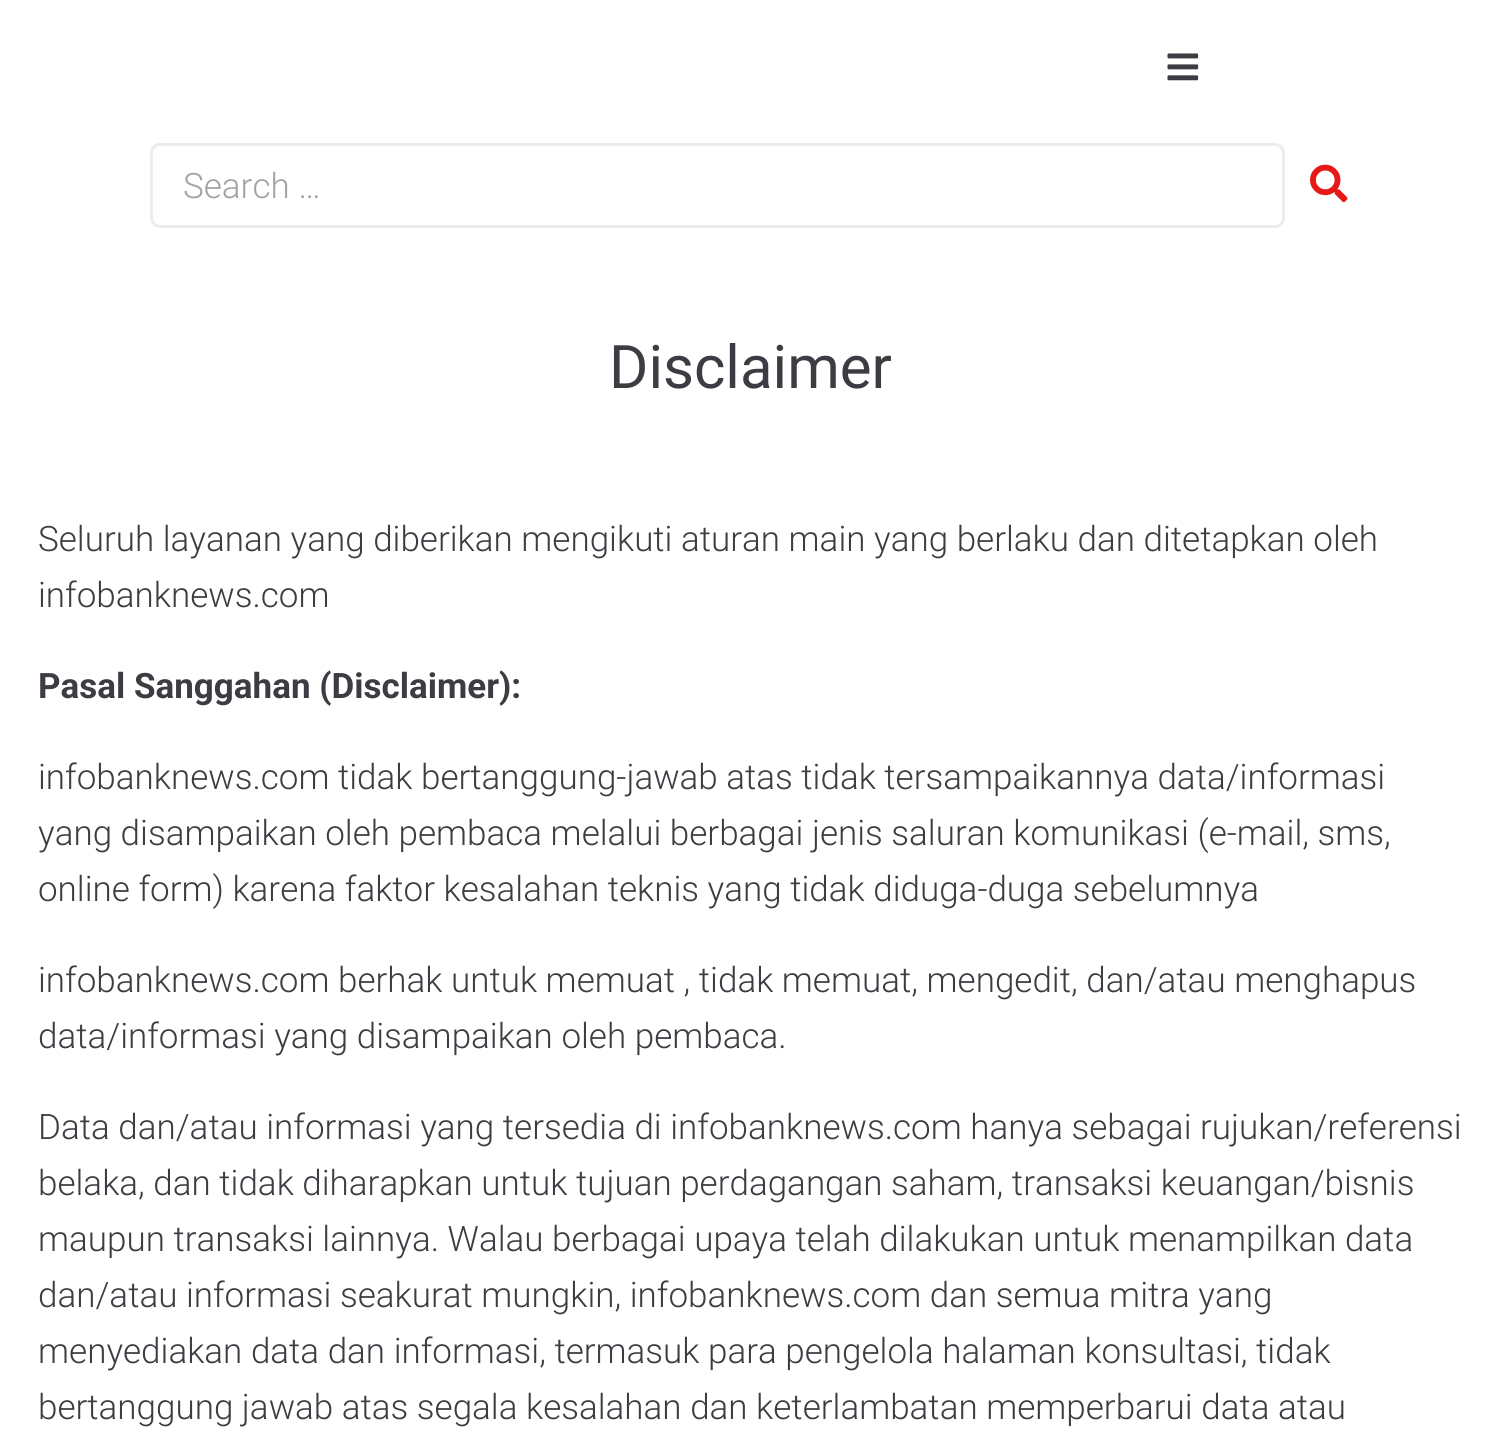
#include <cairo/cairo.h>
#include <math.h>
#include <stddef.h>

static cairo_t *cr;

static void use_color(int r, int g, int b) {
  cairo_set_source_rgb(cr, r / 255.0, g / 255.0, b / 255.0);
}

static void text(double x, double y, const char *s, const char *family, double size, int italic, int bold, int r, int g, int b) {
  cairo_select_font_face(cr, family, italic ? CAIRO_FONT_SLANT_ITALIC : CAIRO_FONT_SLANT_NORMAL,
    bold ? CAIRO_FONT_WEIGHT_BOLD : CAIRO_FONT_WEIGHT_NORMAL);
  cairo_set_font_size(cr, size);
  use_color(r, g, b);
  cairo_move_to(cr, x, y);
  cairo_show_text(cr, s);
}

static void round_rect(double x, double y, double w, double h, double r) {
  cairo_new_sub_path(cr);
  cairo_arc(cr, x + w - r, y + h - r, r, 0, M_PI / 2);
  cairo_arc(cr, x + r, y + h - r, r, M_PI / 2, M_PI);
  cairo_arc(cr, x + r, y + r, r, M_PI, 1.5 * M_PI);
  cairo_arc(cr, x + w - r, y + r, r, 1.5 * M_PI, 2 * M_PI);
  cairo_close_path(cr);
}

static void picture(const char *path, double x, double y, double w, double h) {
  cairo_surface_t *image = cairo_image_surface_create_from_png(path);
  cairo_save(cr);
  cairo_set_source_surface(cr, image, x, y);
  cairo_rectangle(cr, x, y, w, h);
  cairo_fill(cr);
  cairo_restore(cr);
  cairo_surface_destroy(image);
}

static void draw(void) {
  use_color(255, 255, 255);
  cairo_paint(cr);
  picture("img_01.png", 1167, 53, 32, 28);
  round_rect(151.5, 144.5, 1132, 82, 8.5);
  use_color(235, 236, 237);
  cairo_set_line_width(cr, 3);
  cairo_stroke(cr);
  picture("img_02.png", 1310, 164, 38, 39);
  text(183, 198, "Search …", "Roboto Light", 35, 0, 0, 161, 162, 164);
  text(609, 388, "Disclaimer", "Roboto", 60, 0, 0, 59, 61, 66);
  text(38, 551, "Seluruh layanan yang diberikan mengikuti aturan main yang berlaku dan ditetapkan oleh", "Roboto Light", 35, 0, 0, 59, 61, 66);
  text(38, 607, "infobanknews.com", "Roboto Light", 35, 0, 0, 59, 61, 66);
  text(38, 698, "Pasal Sanggahan (Disclaimer):", "Roboto", 35, 0, 1, 59, 61, 66);
  text(38, 789, "infobanknews.com tidak bertanggung-jawab atas tidak tersampaikannya data/informasi", "Roboto Light", 35, 0, 0, 59, 61, 66);
  text(38, 845, "yang disampaikan oleh pembaca melalui berbagai jenis saluran komunikasi (e-mail, sms,", "Roboto Light", 35, 0, 0, 59, 61, 66);
  text(38, 901, "online form) karena faktor kesalahan teknis yang tidak diduga-duga sebelumnya", "Roboto Light", 35, 0, 0, 59, 61, 66);
  text(38, 992, "infobanknews.com berhak untuk memuat , tidak memuat, mengedit, dan/atau menghapus", "Roboto Light", 35, 0, 0, 59, 61, 66);
  text(38, 1048, "data/informasi yang disampaikan oleh pembaca.", "Roboto Light", 35, 0, 0, 59, 61, 66);
  text(38, 1139, "Data dan/atau informasi yang tersedia di infobanknews.com hanya sebagai rujukan/referensi", "Roboto Light", 35, 0, 0, 59, 61, 66);
  text(38, 1195, "belaka, dan tidak diharapkan untuk tujuan perdagangan saham, transaksi keuangan/bisnis", "Roboto Light", 35, 0, 0, 59, 61, 66);
  text(38, 1251, "maupun transaksi lainnya. Walau berbagai upaya telah dilakukan untuk menampilkan data", "Roboto Light", 35, 0, 0, 59, 61, 66);
  text(38, 1307, "dan/atau informasi seakurat mungkin, infobanknews.com dan semua mitra yang", "Roboto Light", 35, 0, 0, 59, 61, 66);
  text(38, 1363, "menyediakan data dan informasi, termasuk para pengelola halaman konsultasi, tidak", "Roboto Light", 35, 0, 0, 59, 61, 66);
  text(38, 1419, "bertanggung jawab atas segala kesalahan dan keterlambatan memperbarui data atau", "Roboto Light", 35, 0, 0, 59, 61, 66);
}

int main(void) {
  cairo_surface_t *surface = cairo_image_surface_create(CAIRO_FORMAT_RGB24, 1500, 1446);
  cr = cairo_create(surface);
  cairo_font_options_t *options = cairo_font_options_create();
  cairo_font_options_set_hint_metrics(options, CAIRO_HINT_METRICS_OFF);
  cairo_font_options_set_hint_style(options, CAIRO_HINT_STYLE_NONE);
  cairo_set_font_options(cr, options);
  cairo_set_miter_limit(cr, 4);
  draw();
  cairo_surface_write_to_png(surface, "out.png");
  cairo_font_options_destroy(options);
  cairo_destroy(cr);
  cairo_surface_destroy(surface);
  return 0;
}
